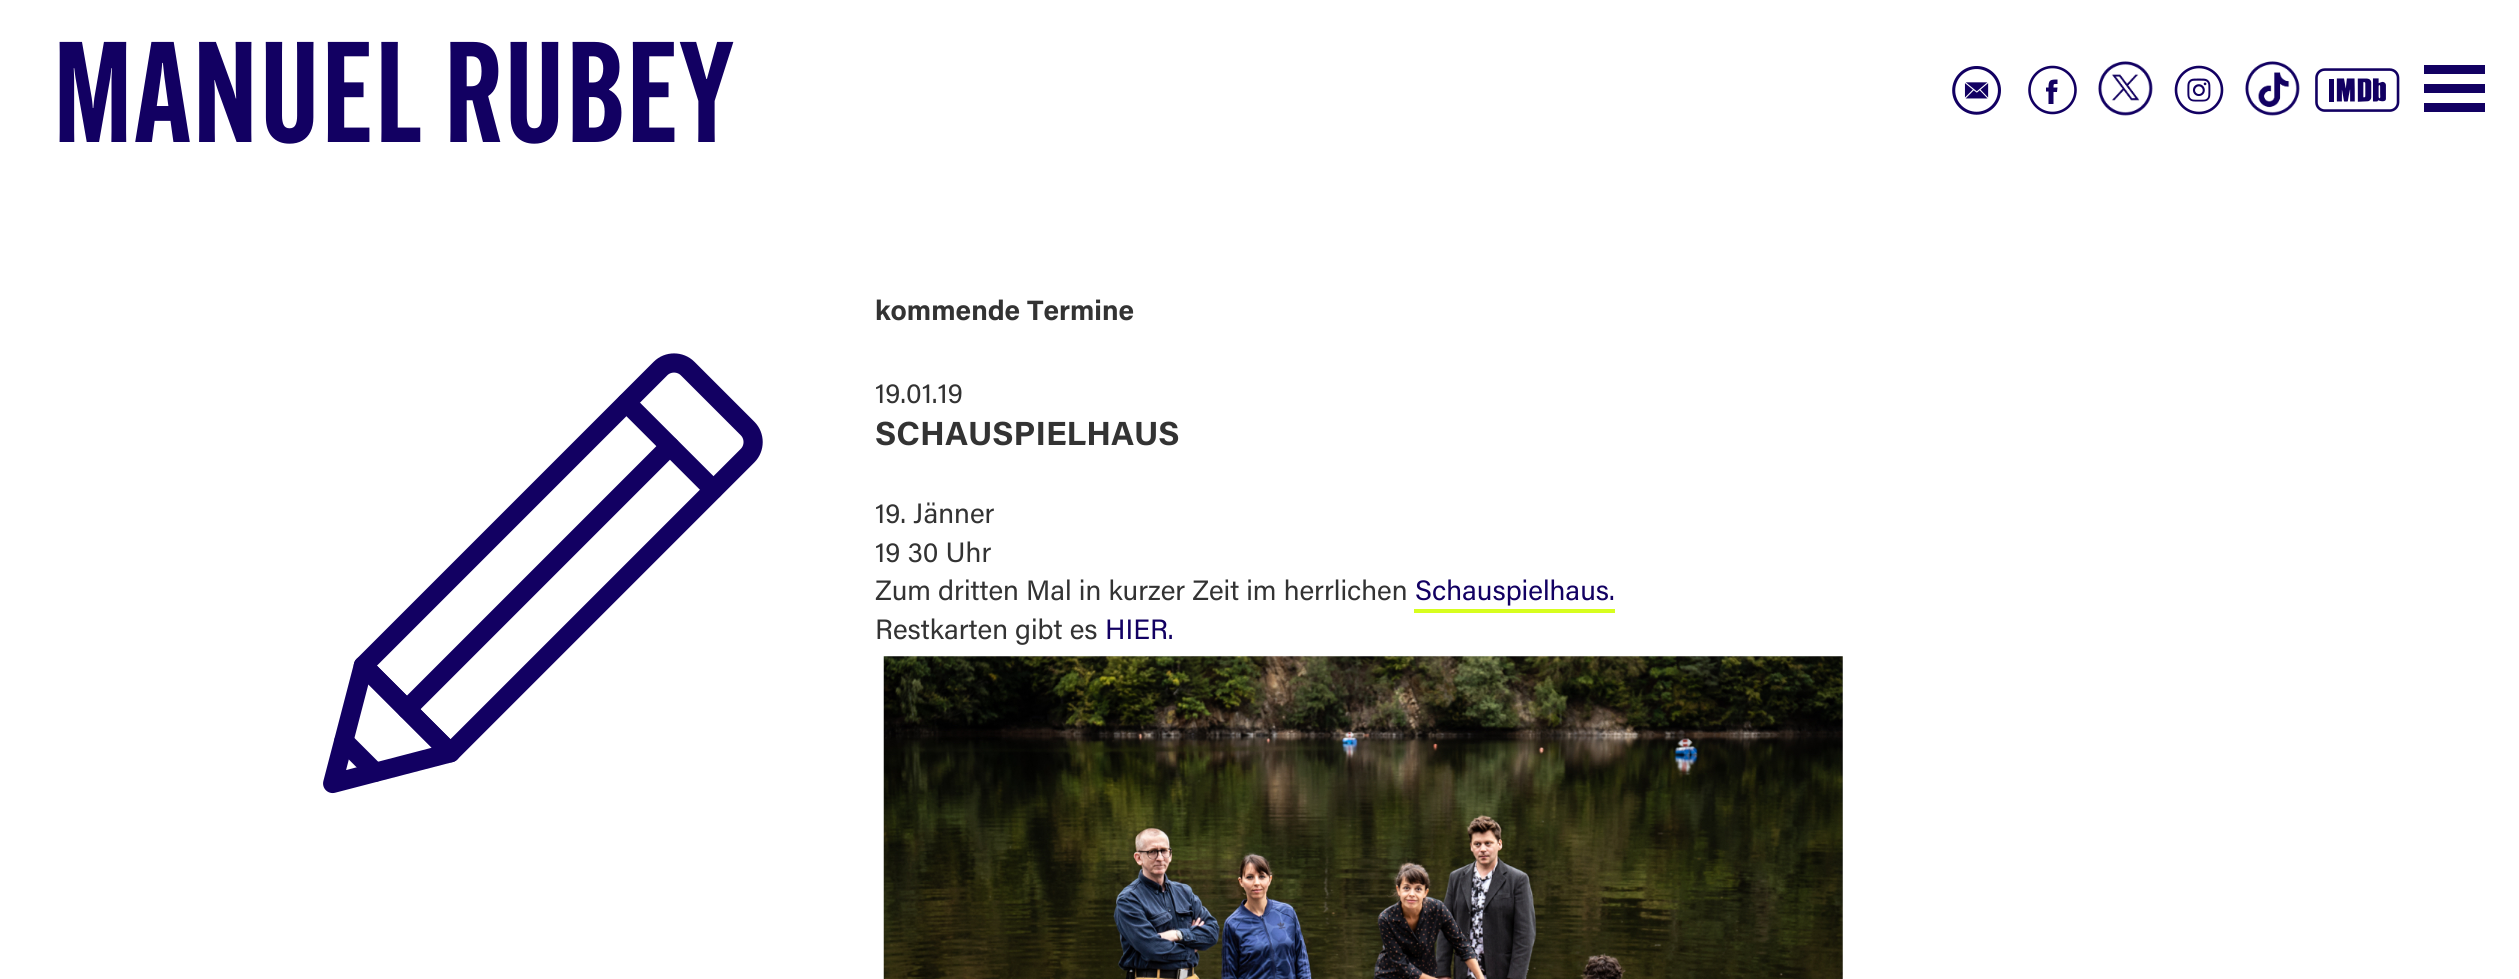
#include <cairo/cairo.h>
#include <math.h>
#include <stddef.h>

static cairo_t *cr;

static void use_color(int r, int g, int b) {
  cairo_set_source_rgb(cr, r / 255.0, g / 255.0, b / 255.0);
}

static void text(double x, double y, const char *s, const char *family, double size, int italic, int bold, int r, int g, int b) {
  cairo_select_font_face(cr, family, italic ? CAIRO_FONT_SLANT_ITALIC : CAIRO_FONT_SLANT_NORMAL,
    bold ? CAIRO_FONT_WEIGHT_BOLD : CAIRO_FONT_WEIGHT_NORMAL);
  cairo_set_font_size(cr, size);
  use_color(r, g, b);
  cairo_move_to(cr, x, y);
  cairo_show_text(cr, s);
}

static void spaced_text(double x, double y, const char *s, double letter, double word) {
  cairo_move_to(cr, x, y);
  while (*s) {
    char ch[5] = {0};
    int n = 0;
    do ch[n++] = *s++; while ((*s & 0xC0) == 0x80);
    cairo_show_text(cr, ch);
    cairo_rel_move_to(cr, letter + word * (*ch == ' '), 0);
  }
}

static void box(double x, double y, double w, double h, int r, int g, int b) {
  use_color(r, g, b);
  cairo_rectangle(cr, x, y, w, h);
  cairo_fill(cr);
}

static void picture(const char *path, double x, double y, double w, double h) {
  cairo_surface_t *image = cairo_image_surface_create_from_png(path);
  cairo_save(cr);
  cairo_set_source_surface(cr, image, x, y);
  cairo_rectangle(cr, x, y, w, h);
  cairo_fill(cr);
  cairo_restore(cr);
  cairo_surface_destroy(image);
}

static void draw(void) {
  use_color(255, 255, 255);
  cairo_paint(cr);
  picture("img_01.png", 1952, 66, 49, 49);
  cairo_arc(cr, 2052.5, 90, 23, 0, 2 * M_PI);
  use_color(18, 0, 98);
  cairo_set_line_width(cr, 2.6);
  cairo_stroke(cr);
  cairo_set_fill_rule(cr, CAIRO_FILL_RULE_EVEN_ODD);
  cairo_new_path(cr);
  cairo_move_to(cr, 2053.5, 104);
  cairo_line_to(cr, 2048.5, 104);
  cairo_line_to(cr, 2048.5, 91.5);
  cairo_line_to(cr, 2046, 91.5);
  cairo_line_to(cr, 2046, 87.5);
  cairo_line_to(cr, 2048.5, 87.5);
  cairo_curve_to(cr, 2048.5, 80, 2050, 79.5, 2057.5, 79.5);
  cairo_line_to(cr, 2057.5, 84);
  cairo_curve_to(cr, 2053.5, 84, 2053.5, 83.5, 2053.5, 87.5);
  cairo_line_to(cr, 2057.5, 87.5);
  cairo_line_to(cr, 2057, 92);
  cairo_line_to(cr, 2053.5, 92);
  cairo_close_path(cr);
  cairo_fill(cr);
  picture("img_02.png", 2098, 61, 55, 55);
  picture("img_03.png", 2174, 65, 50, 50);
  picture("img_04.png", 2245, 61, 55, 55);
  picture("img_05.png", 2315, 68, 85, 44);
  box(2424, 65, 61, 9, 18, 0, 98);
  box(2424, 84, 61, 9, 18, 0, 98);
  box(2424, 103, 61, 9, 18, 0, 98);
  picture("img_06.png", 323, 353, 440, 441);
  box(1414, 609, 201, 4, 215, 254, 30);
  picture("img_07.png", 883, 656, 960, 323);
  cairo_select_font_face(cr, "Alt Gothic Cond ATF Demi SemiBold", CAIRO_FONT_SLANT_NORMAL, CAIRO_FONT_WEIGHT_NORMAL);
  cairo_set_font_size(cr, 140);
  use_color(18, 0, 98);
  spaced_text(53, 142, "MANUEL RUBEY", 1.75, 0);
  text(875, 320, "kommende Termine", "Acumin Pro", 28, 0, 1, 51, 51, 51);
  text(875, 403, "19.01.19", "Acumin Pro", 28, 0, 0, 51, 51, 51);
  text(875, 445, "SCHAUSPIELHAUS", "Acumin Pro", 33.5, 0, 1, 51, 51, 51);
  text(875, 523, "19. Jänner", "Acumin Pro", 28, 0, 0, 51, 51, 51);
  text(875, 562, "19 30 Uhr", "Acumin Pro", 28, 0, 0, 51, 51, 51);
  text(875, 600, "Zum dritten Mal in kurzer Zeit im herrlichen", "Acumin Pro", 28, 0, 0, 51, 51, 51);
  text(1415, 600, "Schauspielhaus.", "Acumin Pro", 28, 0, 0, 18, 0, 98);
  text(875, 639, "Restkarten gibt es", "Acumin Pro", 28, 0, 0, 51, 51, 51);
  text(1105, 639, "HIER.", "Acumin Pro", 28, 0, 0, 18, 0, 98);
}

int main(void) {
  cairo_surface_t *surface = cairo_image_surface_create(CAIRO_FORMAT_RGB24, 2519, 979);
  cr = cairo_create(surface);
  cairo_font_options_t *options = cairo_font_options_create();
  cairo_font_options_set_hint_metrics(options, CAIRO_HINT_METRICS_OFF);
  cairo_font_options_set_hint_style(options, CAIRO_HINT_STYLE_NONE);
  cairo_set_font_options(cr, options);
  cairo_set_miter_limit(cr, 4);
  draw();
  cairo_surface_write_to_png(surface, "out.png");
  cairo_font_options_destroy(options);
  cairo_destroy(cr);
  cairo_surface_destroy(surface);
  return 0;
}
